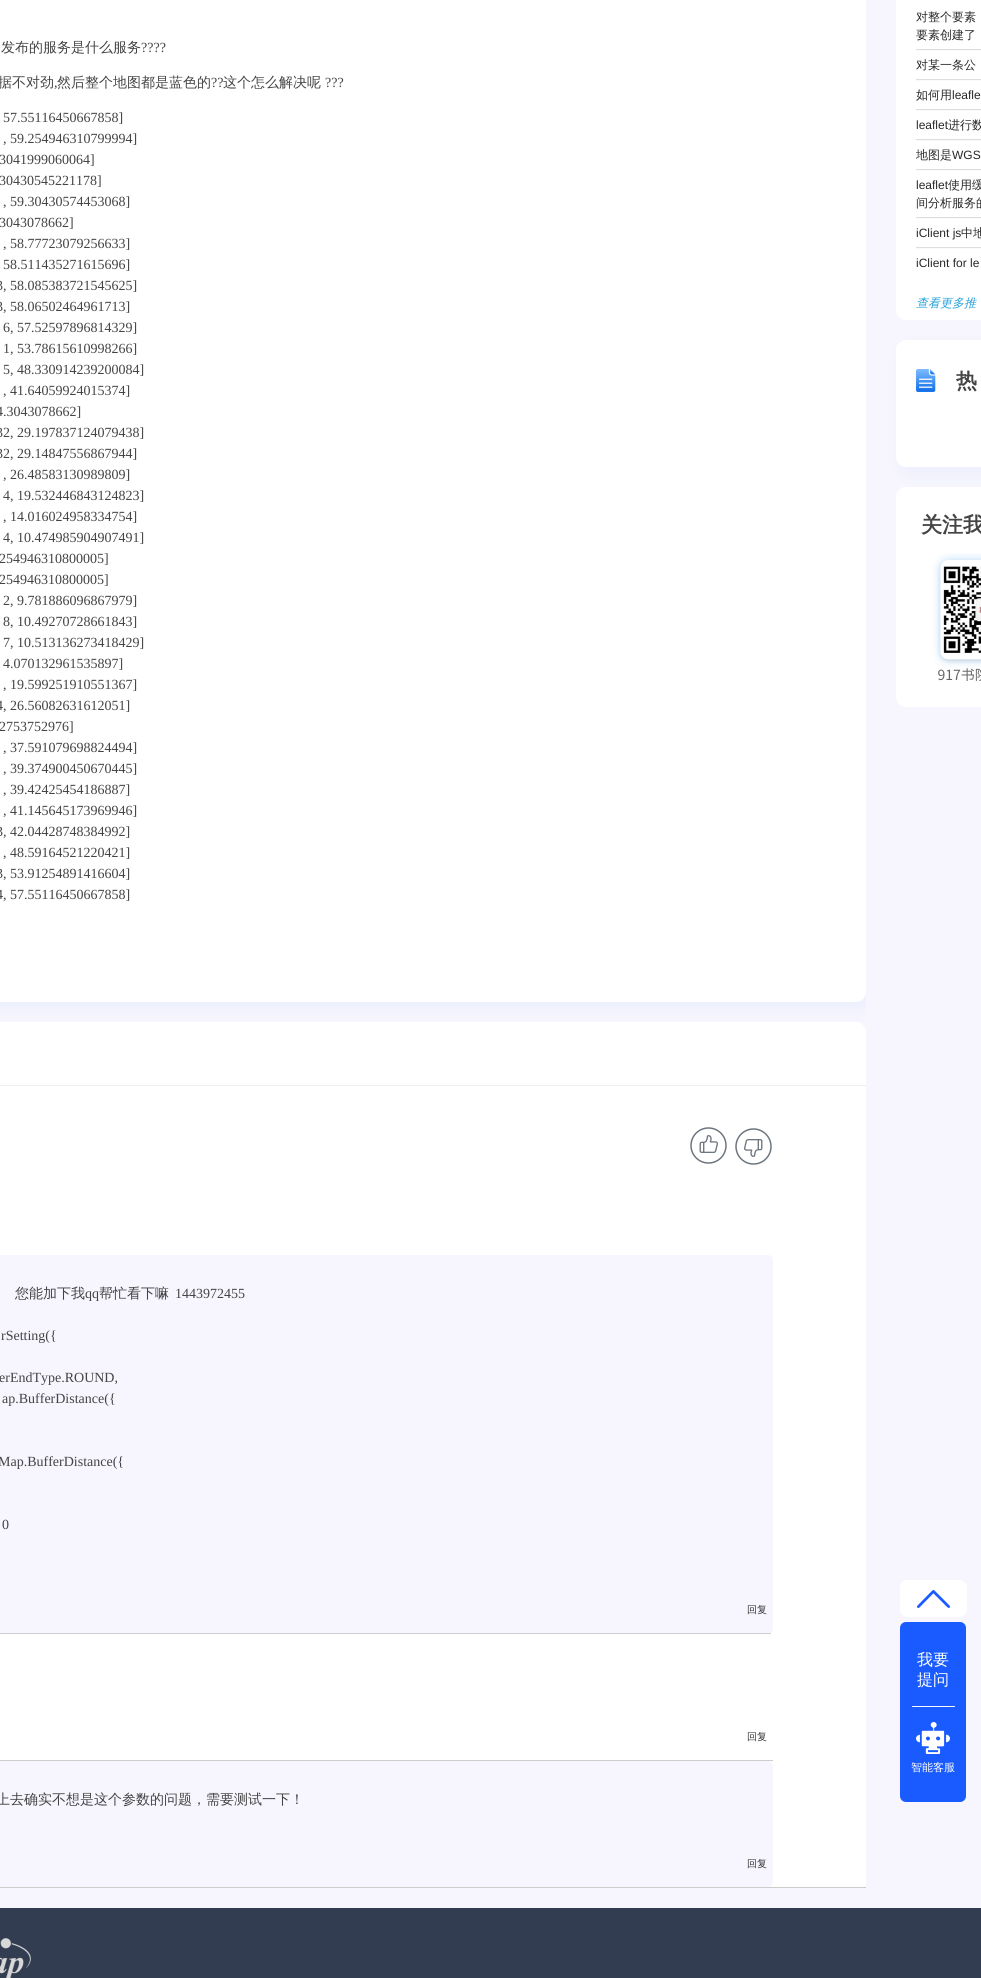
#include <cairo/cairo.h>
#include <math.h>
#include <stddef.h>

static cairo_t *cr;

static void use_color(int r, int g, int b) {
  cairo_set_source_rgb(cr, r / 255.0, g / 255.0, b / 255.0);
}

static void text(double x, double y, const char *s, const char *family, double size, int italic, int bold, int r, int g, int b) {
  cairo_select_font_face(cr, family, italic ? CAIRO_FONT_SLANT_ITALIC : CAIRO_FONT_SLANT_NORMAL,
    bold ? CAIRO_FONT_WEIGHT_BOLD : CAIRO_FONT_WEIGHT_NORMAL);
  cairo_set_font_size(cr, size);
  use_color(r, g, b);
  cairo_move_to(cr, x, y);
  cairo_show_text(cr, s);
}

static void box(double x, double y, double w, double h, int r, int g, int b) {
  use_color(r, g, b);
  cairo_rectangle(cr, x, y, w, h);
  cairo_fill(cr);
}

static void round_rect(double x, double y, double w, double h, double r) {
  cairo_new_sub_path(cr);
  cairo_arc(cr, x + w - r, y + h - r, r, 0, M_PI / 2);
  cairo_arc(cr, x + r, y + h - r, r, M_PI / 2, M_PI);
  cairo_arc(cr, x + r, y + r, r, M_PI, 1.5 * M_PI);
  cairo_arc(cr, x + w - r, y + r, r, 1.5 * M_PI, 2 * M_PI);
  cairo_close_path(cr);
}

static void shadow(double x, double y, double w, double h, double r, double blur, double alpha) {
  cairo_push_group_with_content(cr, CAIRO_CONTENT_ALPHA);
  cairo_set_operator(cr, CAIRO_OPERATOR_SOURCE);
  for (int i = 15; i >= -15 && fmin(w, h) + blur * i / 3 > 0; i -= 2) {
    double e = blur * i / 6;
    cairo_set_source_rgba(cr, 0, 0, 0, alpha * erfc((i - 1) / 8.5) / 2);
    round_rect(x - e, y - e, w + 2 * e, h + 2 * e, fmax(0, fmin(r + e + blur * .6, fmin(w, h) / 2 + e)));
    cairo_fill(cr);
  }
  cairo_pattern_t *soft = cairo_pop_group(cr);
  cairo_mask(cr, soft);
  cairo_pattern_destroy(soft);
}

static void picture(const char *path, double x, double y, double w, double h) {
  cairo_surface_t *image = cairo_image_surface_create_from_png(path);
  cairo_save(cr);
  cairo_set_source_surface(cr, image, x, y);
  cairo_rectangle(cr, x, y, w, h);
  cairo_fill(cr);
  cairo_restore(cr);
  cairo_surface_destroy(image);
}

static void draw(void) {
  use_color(247, 246, 254);
  cairo_paint(cr);
  use_color(255, 255, 255);
  round_rect(-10, 1022, 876, 866, 10);
  cairo_fill(cr);
  cairo_save(cr);
  cairo_rectangle(cr, 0, 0, 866, 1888);
  cairo_clip(cr);
  use_color(30, 89, 255);
  shadow(-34, -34, 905, 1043, 10, 8, 0.05);
  cairo_restore(cr);
  round_rect(-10, -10, 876, 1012, 10);
  cairo_fill(cr);
  box(861, 1880, 5, 7, 255, 255, 255);
  box(0, 1085, 866, 1, 238, 238, 238);
  box(0, 1887, 866, 1, 204, 204, 204);
  picture("img_01.png", 690, 1127, 37, 37);
  picture("img_02.png", 735, 1128, 37, 37);
  use_color(247, 246, 254);
  round_rect(-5, 1255, 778, 379, 5);
  cairo_fill(cr);
  box(0, 1633, 771, 1, 204, 204, 204);
  box(0, 1760, 773, 1, 204, 204, 204);
  use_color(247, 246, 254);
  round_rect(-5, 1761, 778, 126, 5);
  cairo_fill(cr);
  use_color(255, 255, 255);
  round_rect(896, -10, 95, 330, 10);
  cairo_fill(cr);
  box(916, 49, 65, 1, 221, 221, 221);
  box(916, 50, 65, 1, 250, 250, 250);
  box(916, 79, 65, 1, 221, 221, 221);
  box(916, 80, 65, 1, 250, 250, 250);
  box(916, 109, 65, 1, 221, 221, 221);
  box(916, 110, 65, 1, 250, 250, 250);
  box(916, 139, 65, 1, 221, 221, 221);
  box(916, 140, 65, 1, 250, 250, 250);
  box(916, 169, 65, 1, 221, 221, 221);
  box(916, 170, 65, 1, 250, 250, 250);
  box(916, 217, 65, 1, 221, 221, 221);
  box(916, 218, 65, 1, 250, 250, 250);
  box(916, 247, 65, 1, 221, 221, 221);
  box(916, 248, 65, 1, 250, 250, 250);
  use_color(30, 89, 255);
  shadow(901, 347, 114, 127, 10, 8, 0.05);
  use_color(255, 255, 255);
  round_rect(896, 340, 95, 127, 10);
  cairo_fill(cr);
  picture("img_03.png", 916, 369, 20, 23);
  round_rect(896, 487, 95, 220, 10);
  cairo_fill(cr);
  picture("img_04.png", 933, 553, 48, 128);
  box(0, 1908, 981, 70, 51, 61, 81);
  picture("img_05.png", 0, 1938, 31, 40);
  use_color(255, 255, 255);
  round_rect(900, 1580, 67, 37, 8);
  cairo_fill(cr);
  picture("img_06.png", 917, 1590, 33, 18);
  use_color(26, 91, 255);
  round_rect(900, 1622, 66, 180, 6);
  cairo_fill(cr);
  use_color(255, 255, 255);
  round_rect(912, 1706, 43, 1, 0.5);
  cairo_fill(cr);
  picture("img_07.png", 916, 1722, 34, 32);
  text(1, 52, "发布的服务是什么服务", "WenQuanYi Zen Hei Medium", 14, 0, 0, 68, 68, 68);
  text(141, 52, "?\077?\077", "Liberation Serif", 14, 0, 0, 68, 68, 68);
  text(-2, 87, "据不对劲", "WenQuanYi Zen Hei Medium", 14, 0, 0, 68, 68, 68);
  text(54, 87, ",", "Liberation Serif", 14, 0, 0, 68, 68, 68);
  text(57, 87, "然后整个地图都是蓝色的", "WenQuanYi Zen Hei Medium", 14, 0, 0, 68, 68, 68);
  text(211, 87, "?\077", "Liberation Serif", 14, 0, 0, 68, 68, 68);
  text(223, 87, "这个怎么解决呢", "WenQuanYi Zen Hei Medium", 14, 0, 0, 68, 68, 68);
  text(325, 87, "?\077?", "Liberation Serif", 14, 0, 0, 68, 68, 68);
  text(3, 122, "57.55116450667858]", "Liberation Serif", 14, 0, 0, 68, 68, 68);
  text(3, 143, ", 59.254946310799994]", "Liberation Serif", 14, 0, 0, 68, 68, 68);
  text(-1, 164, "3041999060064]", "Liberation Serif", 14, 0, 0, 68, 68, 68);
  text(-1, 185, "30430545221178]", "Liberation Serif", 14, 0, 0, 68, 68, 68);
  text(3, 206, ", 59.30430574453068]", "Liberation Serif", 14, 0, 0, 68, 68, 68);
  text(-1, 227, "3043078662]", "Liberation Serif", 14, 0, 0, 68, 68, 68);
  text(3, 248, ", 58.77723079256633]", "Liberation Serif", 14, 0, 0, 68, 68, 68);
  text(3, 269, "58.511435271615696]", "Liberation Serif", 14, 0, 0, 68, 68, 68);
  text(-4, 290, "3, 58.085383721545625]", "Liberation Serif", 14, 0, 0, 68, 68, 68);
  text(-4, 311, "3, 58.06502464961713]", "Liberation Serif", 14, 0, 0, 68, 68, 68);
  text(3, 332, "6, 57.52597896814329]", "Liberation Serif", 14, 0, 0, 68, 68, 68);
  text(3, 353, "1, 53.78615610998266]", "Liberation Serif", 14, 0, 0, 68, 68, 68);
  text(3, 374, "5, 48.330914239200084]", "Liberation Serif", 14, 0, 0, 68, 68, 68);
  text(3, 395, ", 41.64059924015374]", "Liberation Serif", 14, 0, 0, 68, 68, 68);
  text(-4, 416, "4.3043078662]", "Liberation Serif", 14, 0, 0, 68, 68, 68);
  text(-4, 437, "32, 29.197837124079438]", "Liberation Serif", 14, 0, 0, 68, 68, 68);
  text(-4, 458, "32, 29.14847556867944]", "Liberation Serif", 14, 0, 0, 68, 68, 68);
  text(3, 479, ", 26.48583130989809]", "Liberation Serif", 14, 0, 0, 68, 68, 68);
  text(3, 500, "4, 19.532446843124823]", "Liberation Serif", 14, 0, 0, 68, 68, 68);
  text(3, 521, ", 14.016024958334754]", "Liberation Serif", 14, 0, 0, 68, 68, 68);
  text(3, 542, "4, 10.474985904907491]", "Liberation Serif", 14, 0, 0, 68, 68, 68);
  text(-1, 563, "254946310800005]", "Liberation Serif", 14, 0, 0, 68, 68, 68);
  text(-1, 584, "254946310800005]", "Liberation Serif", 14, 0, 0, 68, 68, 68);
  text(3, 605, "2, 9.781886096867979]", "Liberation Serif", 14, 0, 0, 68, 68, 68);
  text(3, 626, "8, 10.49270728661843]", "Liberation Serif", 14, 0, 0, 68, 68, 68);
  text(3, 647, "7, 10.513136273418429]", "Liberation Serif", 14, 0, 0, 68, 68, 68);
  text(3, 668, "4.070132961535897]", "Liberation Serif", 14, 0, 0, 68, 68, 68);
  text(3, 689, ", 19.599251910551367]", "Liberation Serif", 14, 0, 0, 68, 68, 68);
  text(-4, 710, "4, 26.56082631612051]", "Liberation Serif", 14, 0, 0, 68, 68, 68);
  text(-1, 731, "2753752976]", "Liberation Serif", 14, 0, 0, 68, 68, 68);
  text(3, 752, ", 37.591079698824494]", "Liberation Serif", 14, 0, 0, 68, 68, 68);
  text(3, 773, ", 39.374900450670445]", "Liberation Serif", 14, 0, 0, 68, 68, 68);
  text(3, 794, ", 39.42425454186887]", "Liberation Serif", 14, 0, 0, 68, 68, 68);
  text(3, 815, ", 41.145645173969946]", "Liberation Serif", 14, 0, 0, 68, 68, 68);
  text(-4, 836, "3, 42.04428748384992]", "Liberation Serif", 14, 0, 0, 68, 68, 68);
  text(3, 857, ", 48.59164521220421]", "Liberation Serif", 14, 0, 0, 68, 68, 68);
  text(-4, 878, "3, 53.91254891416604]", "Liberation Serif", 14, 0, 0, 68, 68, 68);
  text(-4, 899, "4, 57.55116450667858]", "Liberation Serif", 14, 0, 0, 68, 68, 68);
  text(15, 1298, "您能加下我", "WenQuanYi Zen Hei Medium", 14, 0, 0, 68, 68, 68);
  text(85, 1298, "qq", "Liberation Serif", 14, 0, 0, 68, 68, 68);
  text(99, 1298, "帮忙看下嘛", "WenQuanYi Zen Hei Medium", 14, 0, 0, 68, 68, 68);
  text(175, 1298, "1443972455", "Liberation Serif", 14, 0, 0, 68, 68, 68);
  text(1, 1340, "rSetting({", "Liberation Serif", 14, 0, 0, 68, 68, 68);
  text(-1, 1382, "erEndType.ROUND,", "Liberation Serif", 14, 0, 0, 68, 68, 68);
  text(2, 1403, "ap.BufferDistance({", "Liberation Serif", 14, 0, 0, 68, 68, 68);
  text(-2, 1466, "Map.BufferDistance({", "Liberation Serif", 14, 0, 0, 68, 68, 68);
  text(2, 1529, "0", "Liberation Serif", 14, 0, 0, 68, 68, 68);
  text(747, 1613, "回复", "WenQuanYi Zen Hei Medium", 10, 0, 0, 51, 51, 51);
  text(747, 1740, "回复", "WenQuanYi Zen Hei Medium", 10, 0, 0, 51, 51, 51);
  text(-4, 1804, "上去确实不想是这个参数的问题，需要测试一下！", "WenQuanYi Zen Hei Medium", 14, 0, 0, 68, 68, 68);
  text(747, 1867, "回复", "WenQuanYi Zen Hei Medium", 10, 0, 0, 51, 51, 51);
  text(916, 21, "对整个要素", "WenQuanYi Zen Hei Medium", 12, 0, 0, 40, 40, 40);
  text(916, 39, "要素创建了", "WenQuanYi Zen Hei Medium", 12, 0, 0, 40, 40, 40);
  text(916, 69, "对某一条公", "WenQuanYi Zen Hei Medium", 12, 0, 0, 40, 40, 40);
  text(916, 99, "如何用", "WenQuanYi Zen Hei Medium", 12, 0, 0, 40, 40, 40);
  text(952, 99, "leafle", "Liberation Sans", 12, 0, 0, 40, 40, 40);
  text(916, 129, "leaflet", "Liberation Sans", 12, 0, 0, 40, 40, 40);
  text(948, 129, "进行数", "WenQuanYi Zen Hei Medium", 12, 0, 0, 40, 40, 40);
  text(916, 159, "地图是", "WenQuanYi Zen Hei Medium", 12, 0, 0, 40, 40, 40);
  text(952, 159, "WGS", "Liberation Sans", 12, 0, 0, 40, 40, 40);
  text(916, 189, "leaflet", "Liberation Sans", 12, 0, 0, 40, 40, 40);
  text(948, 189, "使用缓", "WenQuanYi Zen Hei Medium", 12, 0, 0, 40, 40, 40);
  text(916, 207, "间分析服务的", "WenQuanYi Zen Hei Medium", 12, 0, 0, 40, 40, 40);
  text(916, 237, "iClient js", "Liberation Sans", 12, 0, 0, 40, 40, 40);
  text(961, 237, "中地", "WenQuanYi Zen Hei Medium", 12, 0, 0, 40, 40, 40);
  text(916, 267, "iClient for le", "Liberation Sans", 12, 0, 0, 40, 40, 40);
  text(916, 307, "查看更多推", "WenQuanYi Zen Hei Medium", 12, 1, 0, 38, 161, 218);
  text(956, 388, "热", "WenQuanYi Zen Hei", 21, 0, 1, 68, 68, 68);
  text(921, 532, "关注我", "WenQuanYi Zen Hei", 21, 0, 1, 68, 68, 68);
  text(917, 1665, "我要", "WenQuanYi Zen Hei Medium", 16, 0, 0, 255, 255, 255);
  text(917, 1685, "提问", "WenQuanYi Zen Hei Medium", 16, 0, 0, 255, 255, 255);
  text(911, 1771, "智能客服", "WenQuanYi Zen Hei Medium", 11, 0, 0, 255, 255, 255);
}

int main(void) {
  cairo_surface_t *surface = cairo_image_surface_create(CAIRO_FORMAT_RGB24, 981, 1978);
  cr = cairo_create(surface);
  cairo_font_options_t *options = cairo_font_options_create();
  cairo_font_options_set_hint_metrics(options, CAIRO_HINT_METRICS_OFF);
  cairo_font_options_set_hint_style(options, CAIRO_HINT_STYLE_NONE);
  cairo_set_font_options(cr, options);
  cairo_set_miter_limit(cr, 4);
  draw();
  cairo_surface_write_to_png(surface, "out.png");
  cairo_font_options_destroy(options);
  cairo_destroy(cr);
  cairo_surface_destroy(surface);
  return 0;
}
